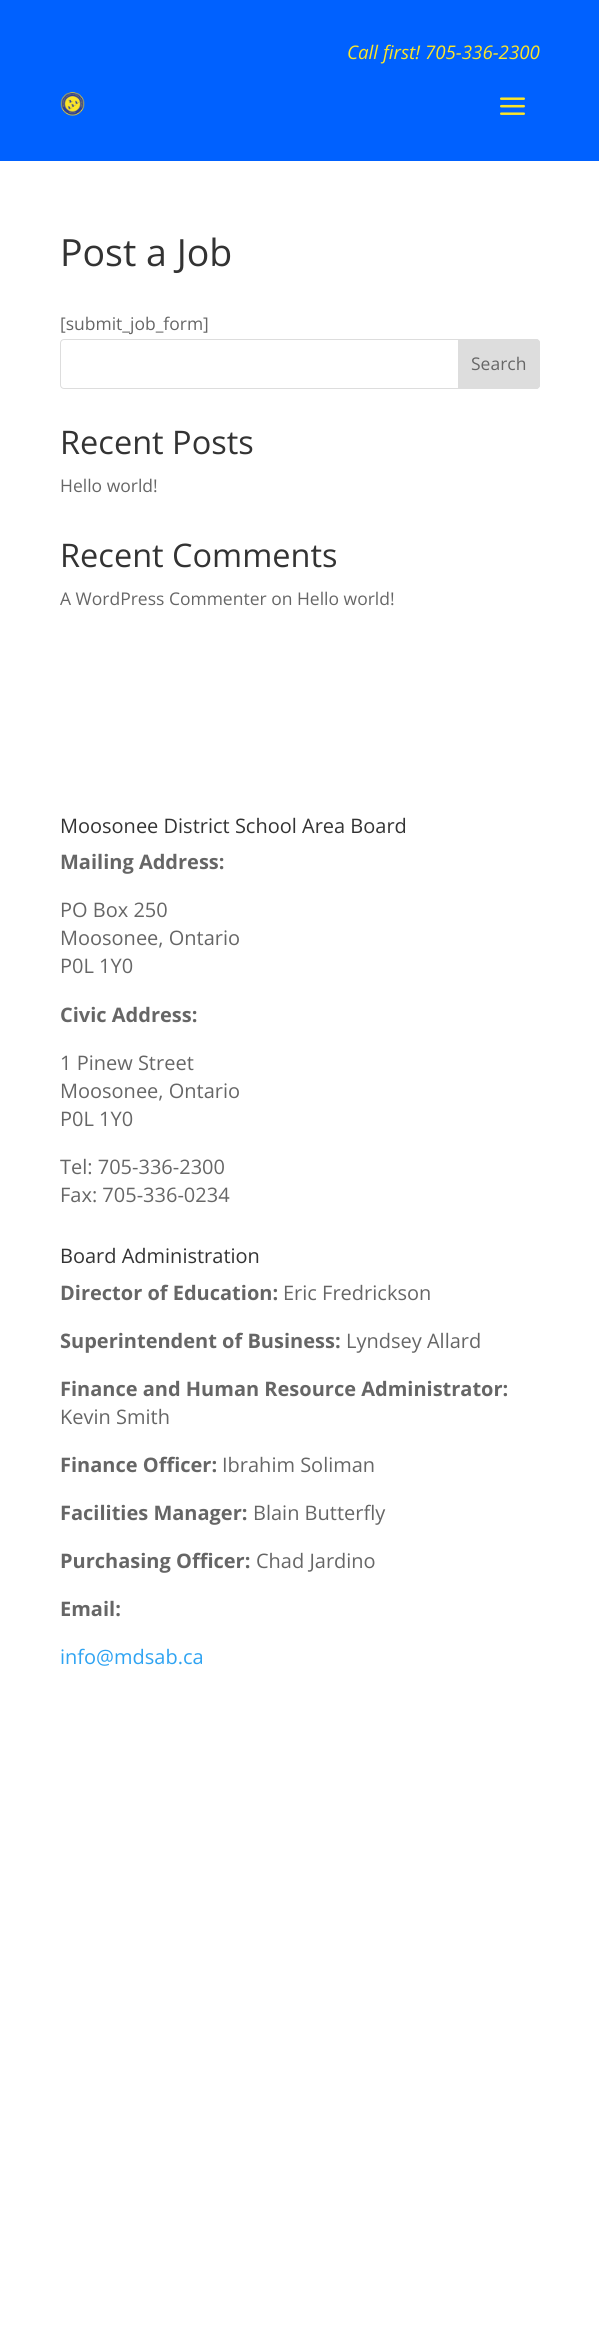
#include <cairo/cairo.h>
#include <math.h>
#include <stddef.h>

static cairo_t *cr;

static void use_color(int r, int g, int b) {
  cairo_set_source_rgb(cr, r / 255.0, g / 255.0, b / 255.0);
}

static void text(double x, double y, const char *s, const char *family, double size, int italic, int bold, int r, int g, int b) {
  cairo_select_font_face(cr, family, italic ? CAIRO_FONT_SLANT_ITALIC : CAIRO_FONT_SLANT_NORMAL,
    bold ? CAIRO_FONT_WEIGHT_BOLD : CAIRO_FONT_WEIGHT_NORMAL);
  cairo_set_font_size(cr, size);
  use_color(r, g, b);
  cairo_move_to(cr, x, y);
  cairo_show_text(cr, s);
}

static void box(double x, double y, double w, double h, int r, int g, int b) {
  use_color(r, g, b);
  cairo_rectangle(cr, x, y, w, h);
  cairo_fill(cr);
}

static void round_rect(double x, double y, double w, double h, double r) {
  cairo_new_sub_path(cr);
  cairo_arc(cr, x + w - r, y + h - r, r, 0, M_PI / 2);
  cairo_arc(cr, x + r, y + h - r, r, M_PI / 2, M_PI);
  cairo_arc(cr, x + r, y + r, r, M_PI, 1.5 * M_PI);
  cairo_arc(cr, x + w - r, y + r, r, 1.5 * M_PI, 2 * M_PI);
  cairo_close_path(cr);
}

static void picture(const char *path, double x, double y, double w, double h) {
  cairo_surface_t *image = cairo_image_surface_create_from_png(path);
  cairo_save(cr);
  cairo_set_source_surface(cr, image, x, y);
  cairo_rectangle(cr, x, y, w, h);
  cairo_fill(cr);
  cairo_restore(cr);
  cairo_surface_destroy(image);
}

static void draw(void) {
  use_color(255, 255, 255);
  cairo_paint(cr);
  box(0, 0, 599, 161, 0, 97, 255);
  picture("img_01.png", 60, 92, 25, 24);
  picture("img_02.png", 500, 97, 25, 18);
  round_rect(60.5, 339.5, 479, 49, 3.5);
  use_color(221, 221, 221);
  cairo_set_line_width(cr, 1);
  cairo_stroke(cr);
  cairo_new_path(cr);
  cairo_move_to(cr, 458.5, 339.5);
  cairo_line_to(cr, 536, 339.5);
  cairo_curve_to(cr, 538, 339.5, 539.5, 341, 539.5, 343);
  cairo_line_to(cr, 539.5, 385);
  cairo_curve_to(cr, 539.5, 387, 538, 388.5, 536, 388.5);
  cairo_line_to(cr, 458.5, 388.5);
  cairo_close_path(cr);
  cairo_fill_preserve(cr);
  cairo_stroke(cr);
  text(347, 59, "Call first! 705-336-2300", "Open Sans", 18.75, 1, 0, 252, 229, 40);
  text(60, 266, "Post a Job", "Open Sans", 37.5, 0, 0, 51, 51, 51);
  text(60, 330, "[submit_job_form]", "Open Sans", 17.5, 0, 0, 102, 102, 102);
  text(471, 370, "Search", "Open Sans", 17.5, 0, 0, 102, 102, 102);
  text(60, 454, "Recent Posts", "Open Sans", 32.5, 0, 0, 51, 51, 51);
  text(60, 492, "Hello world!", "Open Sans", 17.5, 0, 0, 102, 102, 102);
  text(60, 567, "Recent Comments", "Open Sans", 32.5, 0, 0, 51, 51, 51);
  text(60, 605, "A WordPress Commenter on Hello world!", "Open Sans", 17.5, 0, 0, 102, 102, 102);
  text(60, 833, "Moosonee District School Area Board", "Open Sans", 20, 0, 0, 51, 51, 51);
  text(60, 869, "Mailing Address:", "Open Sans", 20, 0, 1, 102, 102, 102);
  text(60, 917, "PO Box 250", "Open Sans", 20, 0, 0, 102, 102, 102);
  text(60, 945, "Moosonee, Ontario", "Open Sans", 20, 0, 0, 102, 102, 102);
  text(60, 973, "P0L 1Y0", "Open Sans", 20, 0, 0, 102, 102, 102);
  text(60, 1022, "Civic Address:", "Open Sans", 20, 0, 1, 102, 102, 102);
  text(60, 1070, "1 Pinew Street", "Open Sans", 20, 0, 0, 102, 102, 102);
  text(60, 1098, "Moosonee, Ontario", "Open Sans", 20, 0, 0, 102, 102, 102);
  text(60, 1126, "P0L 1Y0", "Open Sans", 20, 0, 0, 102, 102, 102);
  text(60, 1174, "Tel: 705-336-2300", "Open Sans", 20, 0, 0, 102, 102, 102);
  text(60, 1202, "Fax: 705-336-0234", "Open Sans", 20, 0, 0, 102, 102, 102);
  text(60, 1263, "Board Administration", "Open Sans", 20, 0, 0, 51, 51, 51);
  text(60, 1300, "Director of Education:", "Open Sans", 20, 0, 1, 102, 102, 102);
  text(283, 1300, "Eric Fredrickson", "Open Sans", 20, 0, 0, 102, 102, 102);
  text(60, 1348, "Superintendent of Business:", "Open Sans", 20, 0, 1, 102, 102, 102);
  text(346, 1348, "Lyndsey Allard", "Open Sans", 20, 0, 0, 102, 102, 102);
  text(60, 1396, "Finance and Human Resource Administrator:", "Open Sans", 20, 0, 1, 102, 102, 102);
  text(60, 1424, "Kevin Smith", "Open Sans", 20, 0, 0, 102, 102, 102);
  text(60, 1472, "Finance Officer:", "Open Sans", 20, 0, 1, 102, 102, 102);
  text(222, 1472, "Ibrahim Soliman", "Open Sans", 20, 0, 0, 102, 102, 102);
  text(60, 1520, "Facilities Manager:", "Open Sans", 20, 0, 1, 102, 102, 102);
  text(253, 1520, "Blain Butterfly", "Open Sans", 20, 0, 0, 102, 102, 102);
  text(60, 1568, "Purchasing Officer:", "Open Sans", 20, 0, 1, 102, 102, 102);
  text(256, 1568, "Chad Jardino", "Open Sans", 20, 0, 0, 102, 102, 102);
  text(60, 1616, "Email:", "Open Sans", 20, 0, 1, 102, 102, 102);
  text(60, 1664, "info@mdsab.ca", "Open Sans", 20, 0, 0, 46, 163, 242);
}

int main(void) {
  cairo_surface_t *surface = cairo_image_surface_create(CAIRO_FORMAT_RGB24, 599, 2352);
  cr = cairo_create(surface);
  cairo_font_options_t *options = cairo_font_options_create();
  cairo_font_options_set_hint_metrics(options, CAIRO_HINT_METRICS_OFF);
  cairo_font_options_set_hint_style(options, CAIRO_HINT_STYLE_NONE);
  cairo_set_font_options(cr, options);
  cairo_set_miter_limit(cr, 4);
  draw();
  cairo_surface_write_to_png(surface, "out.png");
  cairo_font_options_destroy(options);
  cairo_destroy(cr);
  cairo_surface_destroy(surface);
  return 0;
}
